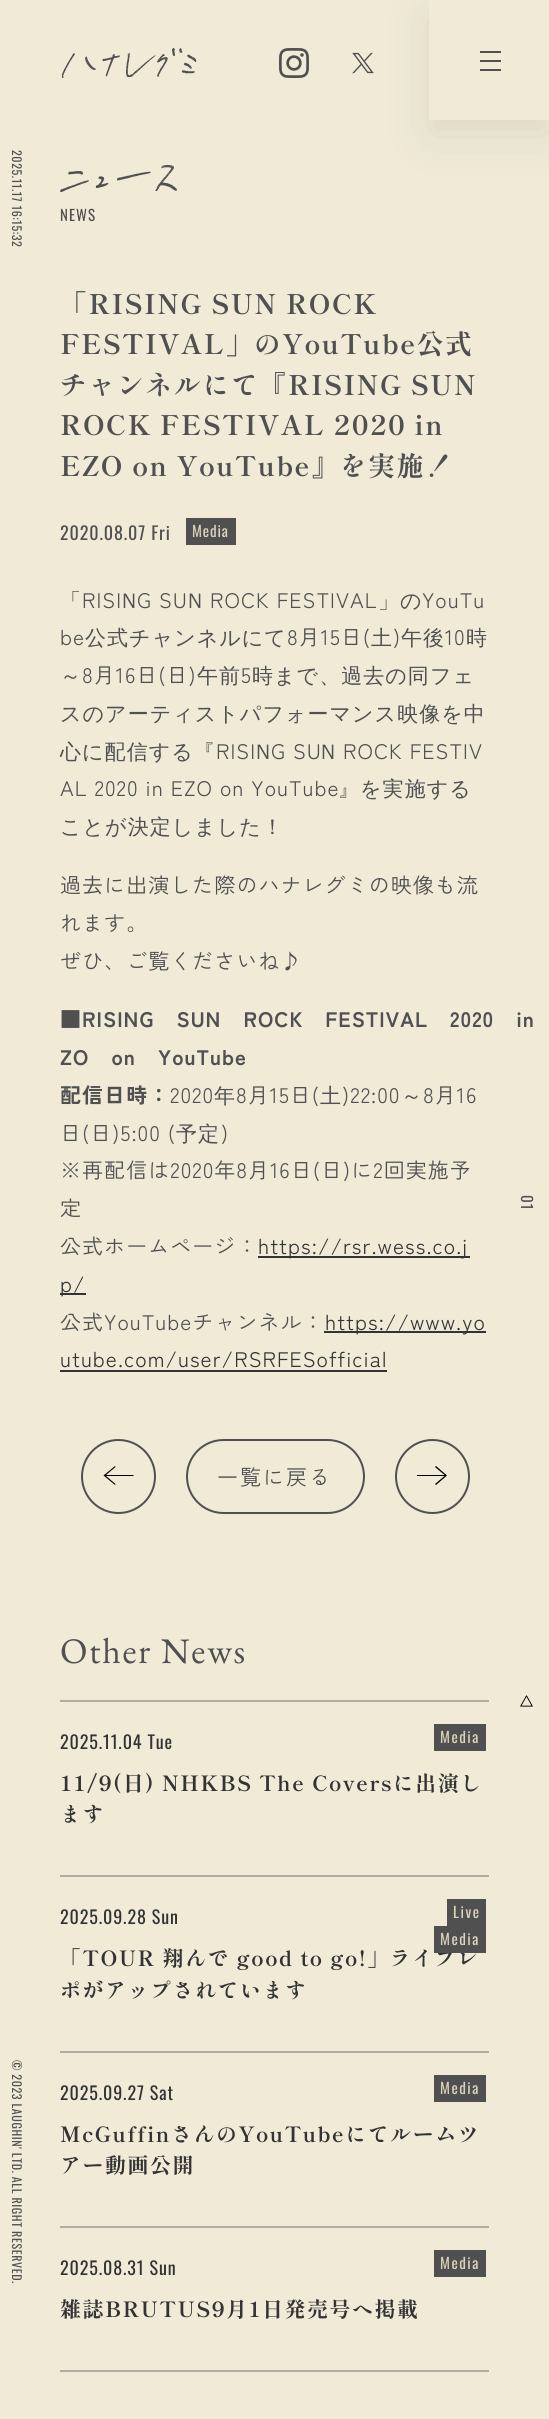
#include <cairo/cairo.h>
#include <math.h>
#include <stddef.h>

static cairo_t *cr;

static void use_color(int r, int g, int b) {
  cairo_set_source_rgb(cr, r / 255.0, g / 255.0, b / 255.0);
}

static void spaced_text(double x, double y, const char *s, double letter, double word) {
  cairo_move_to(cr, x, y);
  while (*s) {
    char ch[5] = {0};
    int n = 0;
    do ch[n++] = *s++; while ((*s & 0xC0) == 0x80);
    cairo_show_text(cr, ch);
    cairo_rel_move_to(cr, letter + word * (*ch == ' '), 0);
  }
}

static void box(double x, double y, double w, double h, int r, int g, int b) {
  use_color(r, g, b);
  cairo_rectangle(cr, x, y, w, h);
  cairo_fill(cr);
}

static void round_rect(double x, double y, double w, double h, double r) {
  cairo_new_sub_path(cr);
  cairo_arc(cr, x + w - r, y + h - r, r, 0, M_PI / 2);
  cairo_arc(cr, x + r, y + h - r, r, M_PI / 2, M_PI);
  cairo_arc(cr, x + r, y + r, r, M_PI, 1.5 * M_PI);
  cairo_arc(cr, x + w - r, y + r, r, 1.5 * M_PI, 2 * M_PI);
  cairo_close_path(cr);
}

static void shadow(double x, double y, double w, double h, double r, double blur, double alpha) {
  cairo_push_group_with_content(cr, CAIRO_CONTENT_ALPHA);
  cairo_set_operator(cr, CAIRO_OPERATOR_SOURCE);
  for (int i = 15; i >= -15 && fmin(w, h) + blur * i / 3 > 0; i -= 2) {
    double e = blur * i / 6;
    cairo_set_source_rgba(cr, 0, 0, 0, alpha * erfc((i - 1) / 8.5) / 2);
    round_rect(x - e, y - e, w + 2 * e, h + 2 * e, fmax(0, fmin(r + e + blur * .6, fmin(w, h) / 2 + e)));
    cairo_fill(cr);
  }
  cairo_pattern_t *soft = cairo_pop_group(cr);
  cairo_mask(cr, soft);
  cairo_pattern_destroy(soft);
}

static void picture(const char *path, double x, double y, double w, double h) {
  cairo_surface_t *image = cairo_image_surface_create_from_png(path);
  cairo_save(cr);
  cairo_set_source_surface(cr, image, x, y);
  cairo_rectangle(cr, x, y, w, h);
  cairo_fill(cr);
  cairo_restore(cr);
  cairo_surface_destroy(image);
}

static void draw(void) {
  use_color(240, 234, 215);
  cairo_paint(cr);
  picture("img_01.png", 62, 48, 135, 30);
  picture("img_02.png", 279, 48, 30, 30);
  picture("img_03.png", 352, 52, 22, 22);
  cairo_save(cr);
  cairo_set_fill_rule(cr, CAIRO_FILL_RULE_EVEN_ODD);
  cairo_new_path(cr);
  cairo_move_to(cr, 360, 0);
  cairo_line_to(cr, 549, 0);
  cairo_line_to(cr, 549, 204);
  cairo_line_to(cr, 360, 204);
  cairo_close_path(cr);
  cairo_move_to(cr, 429, 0);
  cairo_line_to(cr, 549, 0);
  cairo_line_to(cr, 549, 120);
  cairo_line_to(cr, 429, 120);
  cairo_close_path(cr);
  cairo_clip(cr);
  use_color(51, 51, 51);
  shadow(429, 15, 120, 120, 0, 22.5, 0.1);
  cairo_restore(cr);
  box(480, 51, 21, 2, 80, 80, 80);
  box(480, 60, 21, 2, 80, 80, 80);
  box(480, 69, 21, 2, 80, 80, 80);
  picture("img_04.png", 60, 165, 117, 27);
  box(186, 518, 50, 27, 80, 80, 80);
  box(258, 1256, 212, 2, 51, 51, 51);
  box(60, 1293, 26, 2, 51, 51, 51);
  box(324, 1331, 162, 2, 51, 51, 51);
  box(60, 1370, 327, 2, 51, 51, 51);
  use_color(0, 0, 0);
  cairo_set_fill_rule(cr, CAIRO_FILL_RULE_EVEN_ODD);
  cairo_new_path(cr);
  cairo_move_to(cr, 106, 1476);
  cairo_line_to(cr, 115.5, 1484);
  cairo_line_to(cr, 115, 1485);
  cairo_line_to(cr, 103.5, 1475.5);
  cairo_line_to(cr, 115, 1466);
  cairo_line_to(cr, 115.5, 1467);
  cairo_line_to(cr, 106, 1475);
  cairo_line_to(cr, 133.5, 1475);
  cairo_line_to(cr, 133.5, 1476);
  cairo_close_path(cr);
  cairo_fill(cr);
  cairo_arc(cr, 118.5, 1476.5, 36.5, 0, 2 * M_PI);
  use_color(80, 80, 80);
  cairo_stroke(cr);
  round_rect(187, 1440, 177, 73, 36.5);
  cairo_stroke(cr);
  use_color(0, 0, 0);
  cairo_new_path(cr);
  cairo_move_to(cr, 444.5, 1476);
  cairo_line_to(cr, 435, 1484);
  cairo_line_to(cr, 436, 1485);
  cairo_line_to(cr, 447, 1475.5);
  cairo_line_to(cr, 436, 1466);
  cairo_line_to(cr, 435, 1467);
  cairo_line_to(cr, 444.5, 1475);
  cairo_line_to(cr, 417, 1475);
  cairo_line_to(cr, 417, 1476);
  cairo_close_path(cr);
  cairo_fill(cr);
  cairo_arc(cr, 432.5, 1476.5, 36.5, 0, 2 * M_PI);
  use_color(80, 80, 80);
  cairo_stroke(cr);
  box(60, 1700, 429, 2, 176, 172, 161);
  box(60, 1875, 429, 2, 176, 172, 161);
  box(434, 1724, 52, 27, 80, 80, 80);
  box(60, 2051, 429, 2, 176, 172, 161);
  box(447, 1899, 39, 27, 80, 80, 80);
  box(60, 2226, 429, 2, 176, 172, 161);
  box(434, 2075, 52, 27, 80, 80, 80);
  box(60, 2370, 429, 2, 176, 172, 161);
  box(434, 2250, 52, 27, 80, 80, 80);
  picture("img_05.png", 520, 1695, 13, 12);
  cairo_select_font_face(cr, "Oswald", CAIRO_FONT_SLANT_NORMAL, CAIRO_FONT_WEIGHT_NORMAL);
  cairo_set_font_size(cr, 12);
  cairo_save(cr);
  cairo_translate(cr, 12, 150);
  cairo_rotate(cr, 90 * M_PI / 180);
  spaced_text(0, 0, "2025.11.17 16:15:32", 0.6, 0);
  cairo_restore(cr);
  cairo_save(cr);
  cairo_translate(cr, 12, 2060);
  cairo_rotate(cr, 90 * M_PI / 180);
  spaced_text(0, 0, "© 2023 LAUGHIN' LTD. ALL RIGHT RESERVED.", 0.6, 0);
  cairo_restore(cr);
  cairo_set_font_size(cr, 15);
  spaced_text(60, 221, "NEWS", 1, 0);
  cairo_select_font_face(cr, "Shippori Mincho", CAIRO_FONT_SLANT_NORMAL, CAIRO_FONT_WEIGHT_BOLD);
  cairo_set_font_size(cr, 27);
  spaced_text(60, 314, "「RISING SUN ROCK", 1.5, 0);
  spaced_text(60, 354, "FESTIVAL」のYouTube公式", 1.5, 0);
  spaced_text(60, 395, "チャンネルにて『RISING SUN", 1.5, 0);
  spaced_text(60, 435, "ROCK FESTIVAL 2020 in", 1.5, 0);
  spaced_text(60, 476, "EZO on YouTube』を実施！", 1.5, 0);
  cairo_select_font_face(cr, "Oswald", CAIRO_FONT_SLANT_NORMAL, CAIRO_FONT_WEIGHT_NORMAL);
  cairo_set_font_size(cr, 18);
  spaced_text(60, 540, "2020.08.07 Fri", 0.9, 0);
  cairo_set_font_size(cr, 15);
  use_color(219, 211, 186);
  spaced_text(192, 537, "Media", 0.9, 0);
  cairo_select_font_face(cr, "WenQuanYi Zen Hei Medium", CAIRO_FONT_SLANT_NORMAL, CAIRO_FONT_WEIGHT_NORMAL);
  cairo_set_font_size(cr, 21);
  use_color(80, 80, 80);
  spaced_text(60, 608, "「", 1.05, 0);
  cairo_select_font_face(cr, "Zen Kaku Gothic New", CAIRO_FONT_SLANT_NORMAL, CAIRO_FONT_WEIGHT_NORMAL);
  spaced_text(82, 608, "RISI", 1.05, 0);
  cairo_select_font_face(cr, "WenQuanYi Zen Hei Medium", CAIRO_FONT_SLANT_NORMAL, CAIRO_FONT_WEIGHT_NORMAL);
  spaced_text(122, 608, "N", 1.05, 0);
  cairo_select_font_face(cr, "Zen Kaku Gothic New", CAIRO_FONT_SLANT_NORMAL, CAIRO_FONT_WEIGHT_NORMAL);
  spaced_text(137, 608, "G SU", 1.05, 0);
  cairo_select_font_face(cr, "WenQuanYi Zen Hei Medium", CAIRO_FONT_SLANT_NORMAL, CAIRO_FONT_WEIGHT_NORMAL);
  spaced_text(188, 608, "N", 1.05, 0);
  cairo_select_font_face(cr, "Zen Kaku Gothic New", CAIRO_FONT_SLANT_NORMAL, CAIRO_FONT_WEIGHT_NORMAL);
  spaced_text(210, 608, "ROCK FESTIVAL", 1.05, 0);
  cairo_select_font_face(cr, "WenQuanYi Zen Hei Medium", CAIRO_FONT_SLANT_NORMAL, CAIRO_FONT_WEIGHT_NORMAL);
  spaced_text(378, 608, "」の", 1.05, 0);
  cairo_select_font_face(cr, "Zen Kaku Gothic New", CAIRO_FONT_SLANT_NORMAL, CAIRO_FONT_WEIGHT_NORMAL);
  spaced_text(422, 608, "YouTu", 1.05, 0);
  spaced_text(60, 645, "be", 1.05, 0);
  cairo_select_font_face(cr, "WenQuanYi Zen Hei Medium", CAIRO_FONT_SLANT_NORMAL, CAIRO_FONT_WEIGHT_NORMAL);
  spaced_text(85, 645, "公式チャンネルにて", 1.05, 0);
  cairo_select_font_face(cr, "Zen Kaku Gothic New", CAIRO_FONT_SLANT_NORMAL, CAIRO_FONT_WEIGHT_NORMAL);
  spaced_text(287, 645, "8月15日(", 1.05, 0);
  cairo_select_font_face(cr, "WenQuanYi Zen Hei Medium", CAIRO_FONT_SLANT_NORMAL, CAIRO_FONT_WEIGHT_NORMAL);
  spaced_text(371, 645, "土", 1.05, 0);
  cairo_select_font_face(cr, "Zen Kaku Gothic New", CAIRO_FONT_SLANT_NORMAL, CAIRO_FONT_WEIGHT_NORMAL);
  spaced_text(393, 645, ")", 1.05, 0);
  cairo_select_font_face(cr, "WenQuanYi Zen Hei Medium", CAIRO_FONT_SLANT_NORMAL, CAIRO_FONT_WEIGHT_NORMAL);
  spaced_text(401, 645, "午後", 1.05, 0);
  cairo_select_font_face(cr, "Zen Kaku Gothic New", CAIRO_FONT_SLANT_NORMAL, CAIRO_FONT_WEIGHT_NORMAL);
  spaced_text(445, 645, "10", 1.05, 0);
  cairo_select_font_face(cr, "WenQuanYi Zen Hei Medium", CAIRO_FONT_SLANT_NORMAL, CAIRO_FONT_WEIGHT_NORMAL);
  spaced_text(466, 645, "時", 1.05, 0);
  spaced_text(60, 683, "～", 1.05, 0);
  cairo_select_font_face(cr, "Zen Kaku Gothic New", CAIRO_FONT_SLANT_NORMAL, CAIRO_FONT_WEIGHT_NORMAL);
  spaced_text(82, 683, "8月16日(日)", 1.05, 0);
  cairo_select_font_face(cr, "WenQuanYi Zen Hei Medium", CAIRO_FONT_SLANT_NORMAL, CAIRO_FONT_WEIGHT_NORMAL);
  spaced_text(197, 683, "午前", 1.05, 0);
  cairo_select_font_face(cr, "Zen Kaku Gothic New", CAIRO_FONT_SLANT_NORMAL, CAIRO_FONT_WEIGHT_NORMAL);
  spaced_text(241, 683, "5", 1.05, 0);
  cairo_select_font_face(cr, "WenQuanYi Zen Hei Medium", CAIRO_FONT_SLANT_NORMAL, CAIRO_FONT_WEIGHT_NORMAL);
  spaced_text(252, 683, "時まで、過去の同フェ", 1.05, 0);
  spaced_text(60, 721, "スのアーティストパフォーマンス映像を中", 1.05, 0);
  spaced_text(60, 759, "心に配信する『", 1.05, 0);
  cairo_select_font_face(cr, "Zen Kaku Gothic New", CAIRO_FONT_SLANT_NORMAL, CAIRO_FONT_WEIGHT_NORMAL);
  spaced_text(216, 759, "RISI", 1.05, 0);
  cairo_select_font_face(cr, "WenQuanYi Zen Hei Medium", CAIRO_FONT_SLANT_NORMAL, CAIRO_FONT_WEIGHT_NORMAL);
  spaced_text(256, 759, "N", 1.05, 0);
  cairo_select_font_face(cr, "Zen Kaku Gothic New", CAIRO_FONT_SLANT_NORMAL, CAIRO_FONT_WEIGHT_NORMAL);
  spaced_text(271, 759, "G SU", 1.05, 0);
  cairo_select_font_face(cr, "WenQuanYi Zen Hei Medium", CAIRO_FONT_SLANT_NORMAL, CAIRO_FONT_WEIGHT_NORMAL);
  spaced_text(321, 759, "N", 1.05, 0);
  cairo_select_font_face(cr, "Zen Kaku Gothic New", CAIRO_FONT_SLANT_NORMAL, CAIRO_FONT_WEIGHT_NORMAL);
  spaced_text(343, 759, "ROCK FESTIV", 1.05, 0);
  spaced_text(60, 796, "AL 2020 in EZO on YouTube", 1.05, 0);
  cairo_select_font_face(cr, "WenQuanYi Zen Hei Medium", CAIRO_FONT_SLANT_NORMAL, CAIRO_FONT_WEIGHT_NORMAL);
  spaced_text(338, 796, "』を実施する", 1.05, 0);
  spaced_text(60, 834, "ことが決定しました！", 1.05, 0);
  cairo_select_font_face(cr, "Zen Kaku Gothic New", CAIRO_FONT_SLANT_NORMAL, CAIRO_FONT_WEIGHT_NORMAL);
  spaced_text(60, 893, "過去に出演した際のハナレグミの映像も流", 1.05, 0);
  spaced_text(60, 931, "れます。", 1.05, 0);
  spaced_text(60, 969, "ぜひ、ご覧くださいね♪", 1.05, 0);
  cairo_select_font_face(cr, "Zen Kaku Gothic New", CAIRO_FONT_SLANT_NORMAL, CAIRO_FONT_WEIGHT_BOLD);
  spaced_text(60, 1027, "■RISING SUN ROCK FESTIVAL 2020 in E", 1.05, 0);
  spaced_text(60, 1065, "ZO on YouTube", 1.05, 0);
  spaced_text(60, 1103, "配信日時：", 1.05, 0);
  cairo_select_font_face(cr, "Zen Kaku Gothic New", CAIRO_FONT_SLANT_NORMAL, CAIRO_FONT_WEIGHT_NORMAL);
  spaced_text(170, 1103, "2020", 1.05, 0);
  cairo_select_font_face(cr, "WenQuanYi Zen Hei Medium", CAIRO_FONT_SLANT_NORMAL, CAIRO_FONT_WEIGHT_NORMAL);
  spaced_text(214, 1103, "年", 1.05, 0);
  cairo_select_font_face(cr, "Zen Kaku Gothic New", CAIRO_FONT_SLANT_NORMAL, CAIRO_FONT_WEIGHT_NORMAL);
  spaced_text(236, 1103, "8月15日(", 1.05, 0);
  cairo_select_font_face(cr, "WenQuanYi Zen Hei Medium", CAIRO_FONT_SLANT_NORMAL, CAIRO_FONT_WEIGHT_NORMAL);
  spaced_text(320, 1103, "土", 1.05, 0);
  cairo_select_font_face(cr, "Zen Kaku Gothic New", CAIRO_FONT_SLANT_NORMAL, CAIRO_FONT_WEIGHT_NORMAL);
  spaced_text(342, 1103, ")22:00", 1.05, 0);
  cairo_select_font_face(cr, "WenQuanYi Zen Hei Medium", CAIRO_FONT_SLANT_NORMAL, CAIRO_FONT_WEIGHT_NORMAL);
  spaced_text(401, 1103, "～", 1.05, 0);
  cairo_select_font_face(cr, "Zen Kaku Gothic New", CAIRO_FONT_SLANT_NORMAL, CAIRO_FONT_WEIGHT_NORMAL);
  spaced_text(423, 1103, "8月16", 1.05, 0);
  spaced_text(60, 1141, "日(日)5:00 (", 1.05, 0);
  cairo_select_font_face(cr, "WenQuanYi Zen Hei Medium", CAIRO_FONT_SLANT_NORMAL, CAIRO_FONT_WEIGHT_NORMAL);
  spaced_text(176, 1141, "予定", 1.05, 0);
  cairo_select_font_face(cr, "Zen Kaku Gothic New", CAIRO_FONT_SLANT_NORMAL, CAIRO_FONT_WEIGHT_NORMAL);
  spaced_text(221, 1141, ")", 1.05, 0);
  spaced_text(60, 1178, "※再配信は2020年8月16日(日)に2回実施予", 1.05, 0);
  spaced_text(60, 1216, "定", 1.05, 0);
  spaced_text(60, 1254, "公式ホームページ：", 1.05, 0);
  use_color(51, 51, 51);
  spaced_text(258, 1254, "https://rsr.wess.co.j", 1.05, 0);
  spaced_text(60, 1292, "p/", 1.05, 0);
  use_color(80, 80, 80);
  spaced_text(60, 1330, "公式YouTubeチャンネル：", 1.05, 0);
  use_color(51, 51, 51);
  spaced_text(325, 1330, "https://www.yo", 1.05, 0);
  spaced_text(60, 1367, "utube.com/user/RSRFESofficial", 1.05, 0);
  use_color(80, 80, 80);
  spaced_text(217, 1485, "一覧に戻る", 2, 0);
  cairo_select_font_face(cr, "EB Garamond", CAIRO_FONT_SLANT_NORMAL, CAIRO_FONT_WEIGHT_NORMAL);
  cairo_set_font_size(cr, 36);
  spaced_text(60, 1663, "Other News", 1.75, 0);
  cairo_select_font_face(cr, "Oswald", CAIRO_FONT_SLANT_NORMAL, CAIRO_FONT_WEIGHT_NORMAL);
  cairo_set_font_size(cr, 18);
  use_color(51, 51, 51);
  spaced_text(60, 1749, "2025.11.04 Tue", 0.9, 0);
  cairo_set_font_size(cr, 15);
  use_color(219, 211, 186);
  spaced_text(440, 1743, "Media", 1.5, 0);
  cairo_select_font_face(cr, "Shippori Mincho", CAIRO_FONT_SLANT_NORMAL, CAIRO_FONT_WEIGHT_BOLD);
  cairo_set_font_size(cr, 21);
  use_color(51, 51, 51);
  spaced_text(60, 1791, "11/9(日) NHKBS The Coversに出演し", 1.5, 0);
  spaced_text(60, 1822, "ます", 1.5, 0);
  cairo_select_font_face(cr, "Oswald", CAIRO_FONT_SLANT_NORMAL, CAIRO_FONT_WEIGHT_NORMAL);
  cairo_set_font_size(cr, 18);
  spaced_text(60, 1924, "2025.09.28 Sun", 0.9, 0);
  cairo_set_font_size(cr, 15);
  use_color(219, 211, 186);
  spaced_text(453, 1918, "Live", 1.5, 0);
  cairo_select_font_face(cr, "Shippori Mincho", CAIRO_FONT_SLANT_NORMAL, CAIRO_FONT_WEIGHT_BOLD);
  cairo_set_font_size(cr, 21);
  use_color(51, 51, 51);
  spaced_text(60, 1966, "「TOUR 翔んで good to go!」ライブレ", 1.5, 0);
  box(434, 1926, 52, 27, 80, 80, 80);
  cairo_select_font_face(cr, "Oswald", CAIRO_FONT_SLANT_NORMAL, CAIRO_FONT_WEIGHT_NORMAL);
  cairo_set_font_size(cr, 15);
  use_color(219, 211, 186);
  spaced_text(440, 1945, "Media", 1.5, 0);
  cairo_select_font_face(cr, "Shippori Mincho", CAIRO_FONT_SLANT_NORMAL, CAIRO_FONT_WEIGHT_BOLD);
  cairo_set_font_size(cr, 21);
  use_color(51, 51, 51);
  spaced_text(60, 1998, "ポがアップされています", 1.5, 0);
  cairo_select_font_face(cr, "Oswald", CAIRO_FONT_SLANT_NORMAL, CAIRO_FONT_WEIGHT_NORMAL);
  cairo_set_font_size(cr, 18);
  spaced_text(60, 2100, "2025.09.27 Sat", 0.9, 0);
  cairo_set_font_size(cr, 15);
  use_color(219, 211, 186);
  spaced_text(440, 2094, "Media", 1.5, 0);
  cairo_select_font_face(cr, "Shippori Mincho", CAIRO_FONT_SLANT_NORMAL, CAIRO_FONT_WEIGHT_BOLD);
  cairo_set_font_size(cr, 21);
  use_color(51, 51, 51);
  spaced_text(60, 2142, "McGuffinさんのYouTubeにてルームツ", 1.5, 0);
  spaced_text(60, 2173, "アー動画公開", 1.5, 0);
  cairo_select_font_face(cr, "Oswald", CAIRO_FONT_SLANT_NORMAL, CAIRO_FONT_WEIGHT_NORMAL);
  cairo_set_font_size(cr, 18);
  spaced_text(60, 2275, "2025.08.31 Sun", 0.9, 0);
  cairo_set_font_size(cr, 15);
  use_color(219, 211, 186);
  spaced_text(440, 2269, "Media", 1.5, 0);
  cairo_select_font_face(cr, "Shippori Mincho", CAIRO_FONT_SLANT_NORMAL, CAIRO_FONT_WEIGHT_BOLD);
  cairo_set_font_size(cr, 21);
  use_color(51, 51, 51);
  spaced_text(60, 2317, "雑誌BRUTUS9月1日発売号へ掲載", 1.5, 0);
  cairo_select_font_face(cr, "Oswald", CAIRO_FONT_SLANT_NORMAL, CAIRO_FONT_WEIGHT_NORMAL);
  cairo_set_font_size(cr, 15);
  use_color(80, 80, 80);
  cairo_save(cr);
  cairo_translate(cr, 521, 1195);
  cairo_rotate(cr, 90 * M_PI / 180);
  spaced_text(0, 0, "01", 1, 0);
  cairo_restore(cr);
}

int main(void) {
  cairo_surface_t *surface = cairo_image_surface_create(CAIRO_FORMAT_RGB24, 549, 2419);
  cr = cairo_create(surface);
  cairo_font_options_t *options = cairo_font_options_create();
  cairo_font_options_set_hint_metrics(options, CAIRO_HINT_METRICS_OFF);
  cairo_font_options_set_hint_style(options, CAIRO_HINT_STYLE_NONE);
  cairo_set_font_options(cr, options);
  cairo_set_miter_limit(cr, 4);
  draw();
  cairo_surface_write_to_png(surface, "out.png");
  cairo_font_options_destroy(options);
  cairo_destroy(cr);
  cairo_surface_destroy(surface);
  return 0;
}
